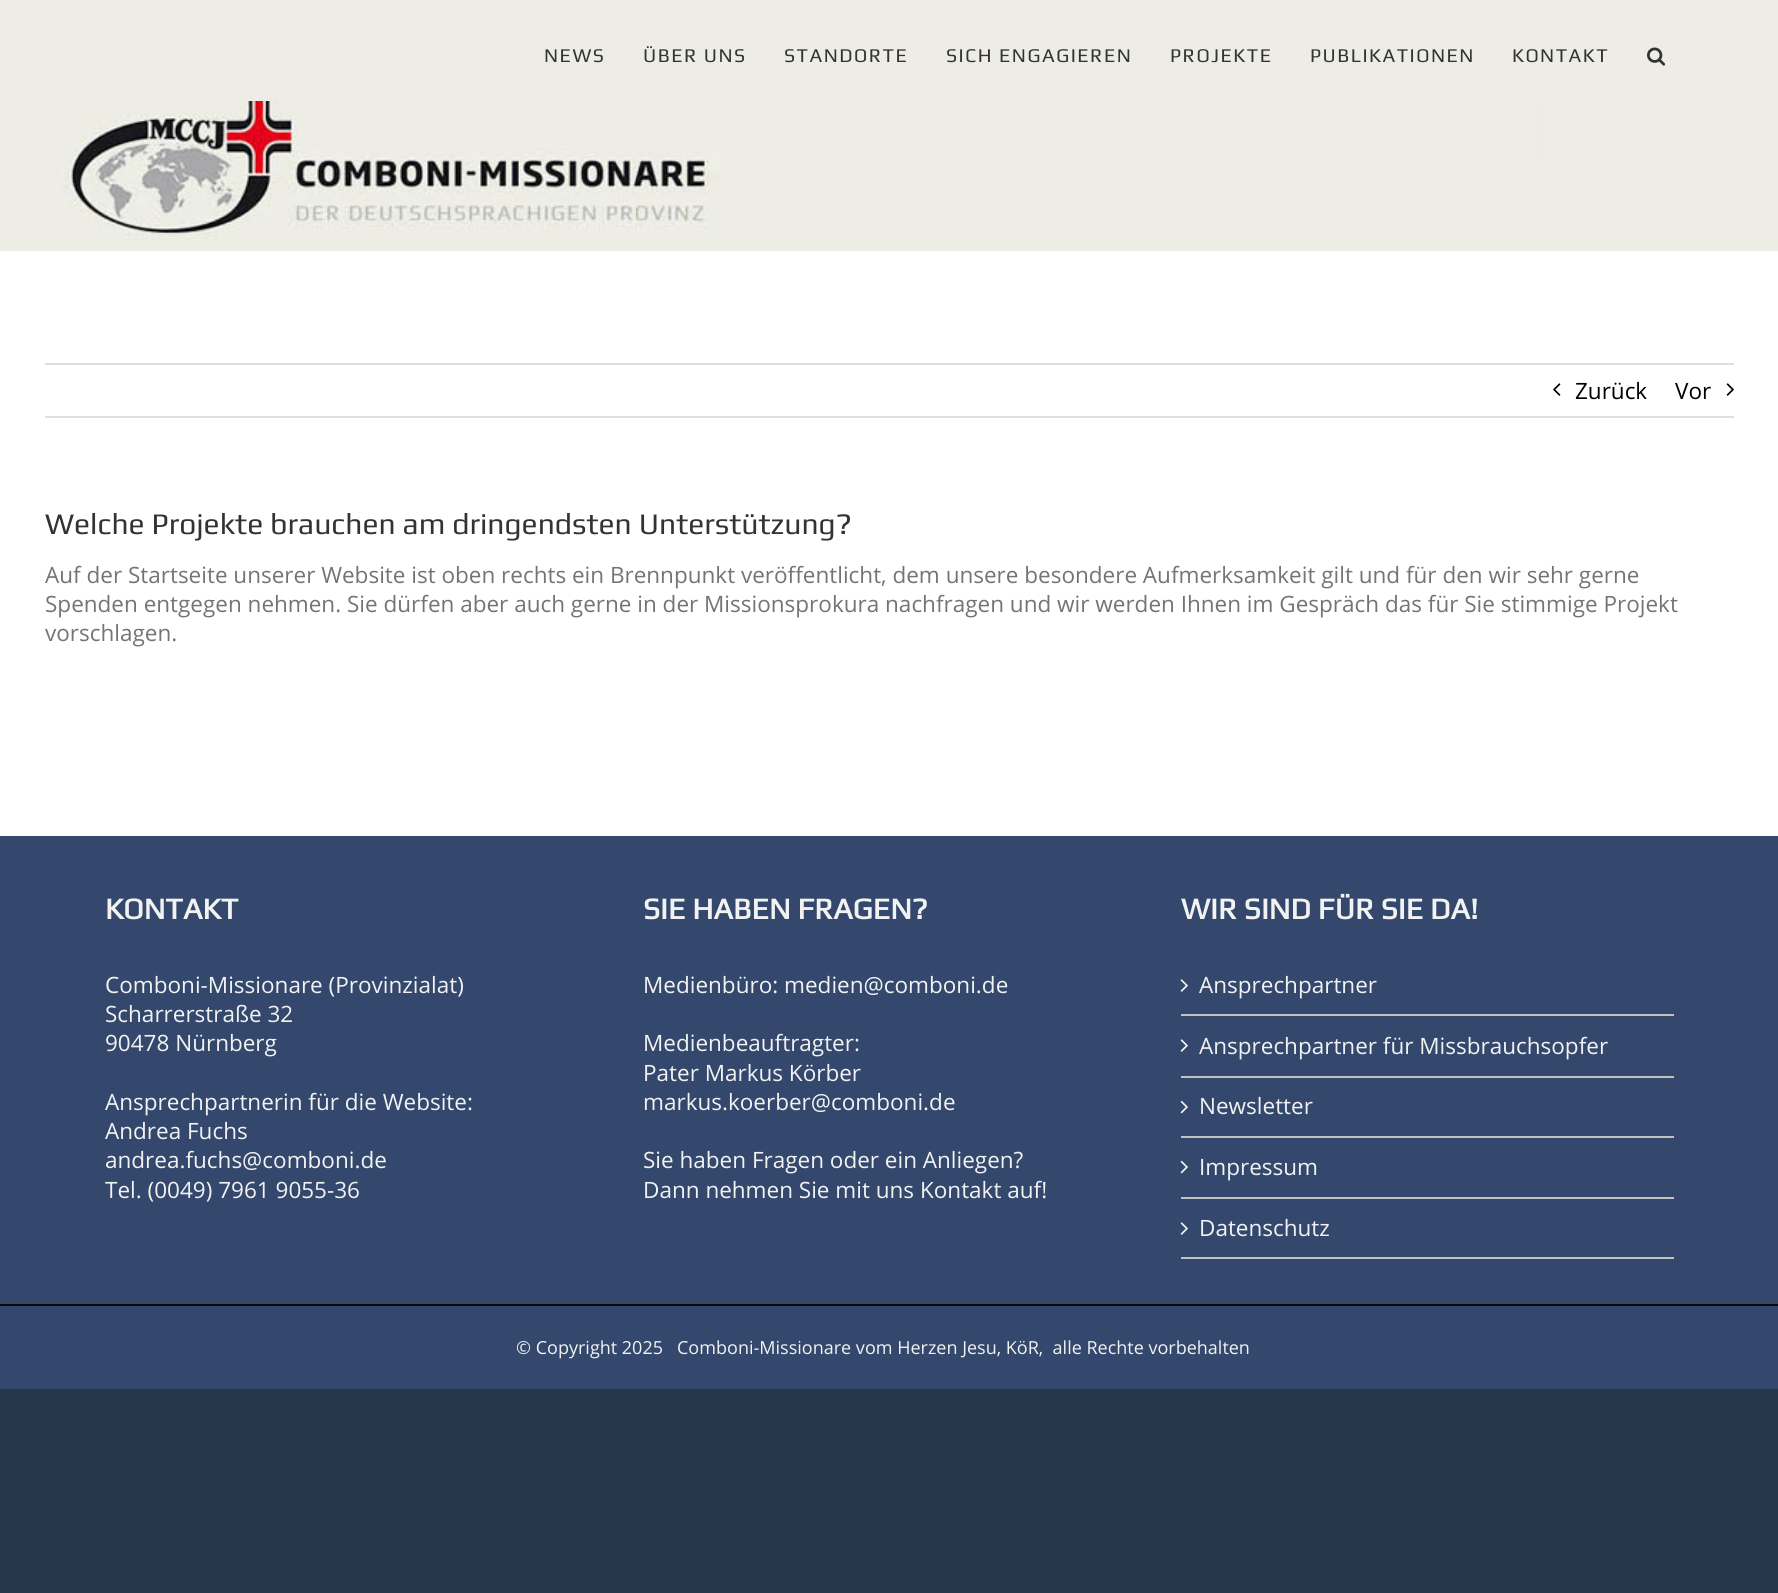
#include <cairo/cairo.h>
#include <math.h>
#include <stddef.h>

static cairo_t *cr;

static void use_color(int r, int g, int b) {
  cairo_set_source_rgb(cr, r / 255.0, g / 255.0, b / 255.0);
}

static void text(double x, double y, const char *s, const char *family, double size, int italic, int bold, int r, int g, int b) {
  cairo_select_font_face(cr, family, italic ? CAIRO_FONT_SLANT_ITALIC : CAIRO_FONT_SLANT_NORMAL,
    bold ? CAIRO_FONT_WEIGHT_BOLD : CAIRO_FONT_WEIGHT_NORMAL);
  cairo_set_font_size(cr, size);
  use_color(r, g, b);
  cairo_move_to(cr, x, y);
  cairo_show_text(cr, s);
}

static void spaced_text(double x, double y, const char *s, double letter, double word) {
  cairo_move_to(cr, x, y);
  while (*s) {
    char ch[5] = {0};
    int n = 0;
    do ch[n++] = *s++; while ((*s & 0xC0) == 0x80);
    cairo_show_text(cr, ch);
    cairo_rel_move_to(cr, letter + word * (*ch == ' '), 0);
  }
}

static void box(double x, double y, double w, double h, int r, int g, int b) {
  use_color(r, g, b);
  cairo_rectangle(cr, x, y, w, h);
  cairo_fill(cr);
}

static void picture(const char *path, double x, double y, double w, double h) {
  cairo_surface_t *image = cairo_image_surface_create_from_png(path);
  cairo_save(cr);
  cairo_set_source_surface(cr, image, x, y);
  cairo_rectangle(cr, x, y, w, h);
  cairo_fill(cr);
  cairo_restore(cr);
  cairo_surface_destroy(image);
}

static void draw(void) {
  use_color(37, 53, 74);
  cairo_paint(cr);
  box(0, 0, 1778, 101, 237, 237, 229);
  picture("img_01.png", 1647, 47, 19, 19);
  box(0, 240, 1778, 11, 237, 237, 229);
  picture("img_02.png", 0, 101, 1778, 139);
  box(0, 251, 1778, 585, 255, 255, 255);
  box(45, 363, 1689, 2, 224, 222, 222);
  box(45, 416, 1689, 2, 224, 222, 222);
  picture("img_03.png", 1553, 383, 8, 13);
  picture("img_04.png", 1726, 383, 8, 13);
  box(0, 836, 1778, 468, 51, 72, 108);
  box(1181, 1014, 493, 2, 193, 193, 193);
  picture("img_05.png", 1180, 979, 8, 13);
  box(1181, 1076, 493, 2, 193, 193, 193);
  picture("img_05.png", 1180, 1039, 8, 13);
  box(1181, 1136, 493, 2, 193, 193, 193);
  picture("img_06.png", 1180, 1100, 8, 14);
  box(1181, 1197, 493, 2, 193, 193, 193);
  picture("img_06.png", 1180, 1160, 8, 14);
  box(1181, 1257, 493, 2, 193, 193, 193);
  picture("img_05.png", 1180, 1222, 8, 13);
  box(0, 1306, 1778, 83, 51, 72, 108);
  box(0, 1304, 1778, 2, 9, 9, 10);
  cairo_select_font_face(cr, "Play", CAIRO_FONT_SLANT_NORMAL, CAIRO_FONT_WEIGHT_NORMAL);
  cairo_set_font_size(cr, 19.5);
  use_color(51, 51, 51);
  spaced_text(544, 62, "NEWS", 1.5, 0);
  spaced_text(643, 62, "ÜBER UNS", 1.5, 0);
  spaced_text(784, 62, "STANDORTE", 1.5, 0);
  spaced_text(946, 62, "SICH ENGAGIEREN", 1.5, 0);
  spaced_text(1170, 62, "PROJEKTE", 1.5, 0);
  spaced_text(1310, 62, "PUBLIKATIONEN", 1.5, 0);
  spaced_text(1512, 62, "KONTAKT", 1.5, 0);
  text(1575, 399, "Zurück", "Open Sans", 22.5, 0, 0, 0, 0, 0);
  text(1675, 399, "Vor", "Open Sans", 22.5, 0, 0, 0, 0, 0);
  text(45, 534, "Welche Projekte brauchen am dringendsten Unterstützung?", "Play", 30, 0, 0, 51, 51, 51);
  text(45, 583, "Auf der Startseite unserer Website ist oben rechts ein Brennpunkt veröffentlicht, dem unsere besondere Aufmerksamkeit gilt und für den wir sehr gerne", "Open Sans", 22.5, 0, 0, 116, 116, 116);
  text(45, 612, "Spenden entgegen nehmen. Sie dürfen aber auch gerne in der Missionsprokura nachfragen und wir werden Ihnen im Gespräch das für Sie stimmige Projekt", "Open Sans", 22.5, 0, 0, 116, 116, 116);
  text(45, 641, "vorschlagen.", "Open Sans", 22.5, 0, 0, 116, 116, 116);
  text(105, 919, "KONTAKT", "Play", 30, 0, 1, 242, 242, 242);
  text(105, 993, "Comboni-Missionare (Provinzialat)", "Open Sans", 22.5, 0, 0, 242, 242, 242);
  text(105, 1022, "Scharrerstraße 32", "Open Sans", 22.5, 0, 0, 242, 242, 242);
  text(105, 1051, "90478 Nürnberg", "Open Sans", 22.5, 0, 0, 242, 242, 242);
  text(105, 1110, "Ansprechpartnerin für die Website:", "Open Sans", 22.5, 0, 0, 242, 242, 242);
  text(105, 1139, "Andrea Fuchs", "Open Sans", 22.5, 0, 0, 242, 242, 242);
  text(105, 1168, "andrea.fuchs@comboni.de", "Open Sans", 22.5, 0, 0, 242, 242, 242);
  text(105, 1198, "Tel. (0049) 7961 9055-36", "Open Sans", 22.5, 0, 0, 242, 242, 242);
  text(643, 919, "SIE HABEN FRAGEN?", "Play", 30, 0, 1, 242, 242, 242);
  text(643, 993, "Medienbüro: medien@comboni.de", "Open Sans", 22.5, 0, 0, 242, 242, 242);
  text(643, 1051, "Medienbeauftragter:", "Open Sans", 22.5, 0, 0, 242, 242, 242);
  text(643, 1081, "Pater Markus Körber", "Open Sans", 22.5, 0, 0, 242, 242, 242);
  text(643, 1110, "markus.koerber@comboni.de", "Open Sans", 22.5, 0, 0, 242, 242, 242);
  text(643, 1168, "Sie haben Fragen oder ein Anliegen?", "Open Sans", 22.5, 0, 0, 242, 242, 242);
  text(643, 1198, "Dann nehmen Sie mit uns Kontakt auf!", "Open Sans", 22.5, 0, 0, 242, 242, 242);
  text(1181, 919, "WIR SIND FÜR SIE DA!", "Play", 30, 0, 1, 242, 242, 242);
  text(1199, 993, "Ansprechpartner", "Open Sans", 22.5, 0, 0, 242, 242, 242);
  text(1199, 1054, "Ansprechpartner für Missbrauchsopfer", "Open Sans", 22.5, 0, 0, 242, 242, 242);
  text(1199, 1114, "Newsletter", "Open Sans", 22.5, 0, 0, 242, 242, 242);
  text(1199, 1175, "Impressum", "Open Sans", 22.5, 0, 0, 242, 242, 242);
  text(1199, 1236, "Datenschutz", "Open Sans", 22.5, 0, 0, 242, 242, 242);
  text(516, 1354, "© Copyright 2025   Comboni-Missionare vom Herzen Jesu, KöR,  alle Rechte vorbehalten", "Open Sans", 18, 0, 0, 242, 242, 242);
}

int main(void) {
  cairo_surface_t *surface = cairo_image_surface_create(CAIRO_FORMAT_RGB24, 1778, 1593);
  cr = cairo_create(surface);
  cairo_font_options_t *options = cairo_font_options_create();
  cairo_font_options_set_hint_metrics(options, CAIRO_HINT_METRICS_OFF);
  cairo_font_options_set_hint_style(options, CAIRO_HINT_STYLE_NONE);
  cairo_set_font_options(cr, options);
  cairo_set_miter_limit(cr, 4);
  draw();
  cairo_surface_write_to_png(surface, "out.png");
  cairo_font_options_destroy(options);
  cairo_destroy(cr);
  cairo_surface_destroy(surface);
  return 0;
}
